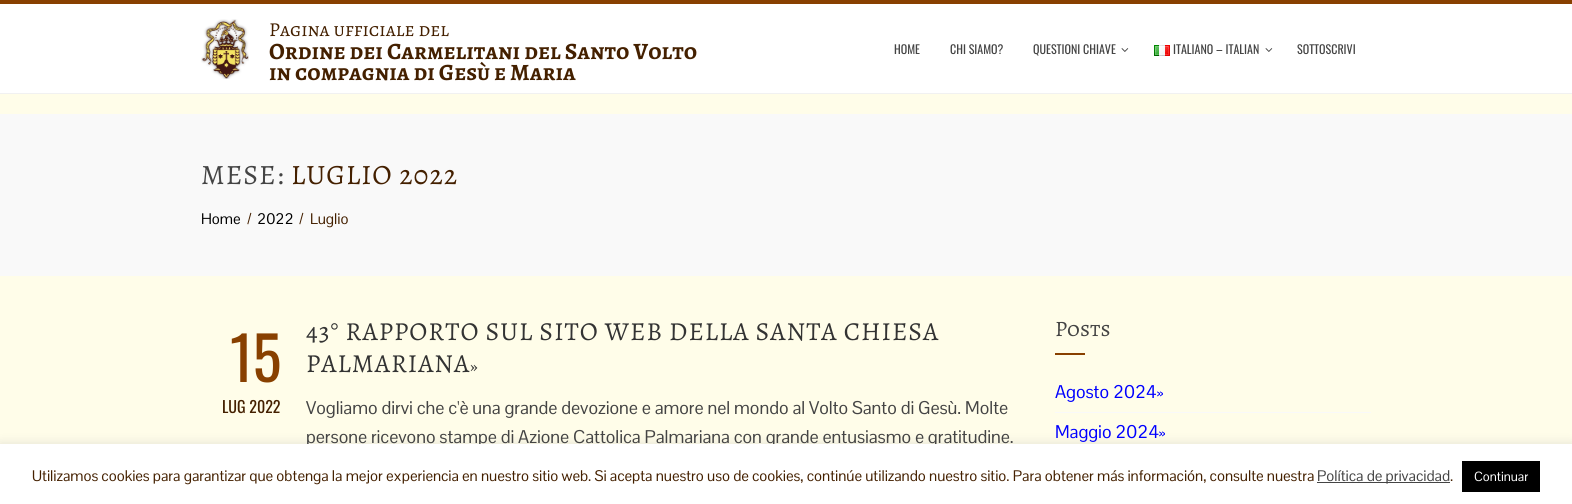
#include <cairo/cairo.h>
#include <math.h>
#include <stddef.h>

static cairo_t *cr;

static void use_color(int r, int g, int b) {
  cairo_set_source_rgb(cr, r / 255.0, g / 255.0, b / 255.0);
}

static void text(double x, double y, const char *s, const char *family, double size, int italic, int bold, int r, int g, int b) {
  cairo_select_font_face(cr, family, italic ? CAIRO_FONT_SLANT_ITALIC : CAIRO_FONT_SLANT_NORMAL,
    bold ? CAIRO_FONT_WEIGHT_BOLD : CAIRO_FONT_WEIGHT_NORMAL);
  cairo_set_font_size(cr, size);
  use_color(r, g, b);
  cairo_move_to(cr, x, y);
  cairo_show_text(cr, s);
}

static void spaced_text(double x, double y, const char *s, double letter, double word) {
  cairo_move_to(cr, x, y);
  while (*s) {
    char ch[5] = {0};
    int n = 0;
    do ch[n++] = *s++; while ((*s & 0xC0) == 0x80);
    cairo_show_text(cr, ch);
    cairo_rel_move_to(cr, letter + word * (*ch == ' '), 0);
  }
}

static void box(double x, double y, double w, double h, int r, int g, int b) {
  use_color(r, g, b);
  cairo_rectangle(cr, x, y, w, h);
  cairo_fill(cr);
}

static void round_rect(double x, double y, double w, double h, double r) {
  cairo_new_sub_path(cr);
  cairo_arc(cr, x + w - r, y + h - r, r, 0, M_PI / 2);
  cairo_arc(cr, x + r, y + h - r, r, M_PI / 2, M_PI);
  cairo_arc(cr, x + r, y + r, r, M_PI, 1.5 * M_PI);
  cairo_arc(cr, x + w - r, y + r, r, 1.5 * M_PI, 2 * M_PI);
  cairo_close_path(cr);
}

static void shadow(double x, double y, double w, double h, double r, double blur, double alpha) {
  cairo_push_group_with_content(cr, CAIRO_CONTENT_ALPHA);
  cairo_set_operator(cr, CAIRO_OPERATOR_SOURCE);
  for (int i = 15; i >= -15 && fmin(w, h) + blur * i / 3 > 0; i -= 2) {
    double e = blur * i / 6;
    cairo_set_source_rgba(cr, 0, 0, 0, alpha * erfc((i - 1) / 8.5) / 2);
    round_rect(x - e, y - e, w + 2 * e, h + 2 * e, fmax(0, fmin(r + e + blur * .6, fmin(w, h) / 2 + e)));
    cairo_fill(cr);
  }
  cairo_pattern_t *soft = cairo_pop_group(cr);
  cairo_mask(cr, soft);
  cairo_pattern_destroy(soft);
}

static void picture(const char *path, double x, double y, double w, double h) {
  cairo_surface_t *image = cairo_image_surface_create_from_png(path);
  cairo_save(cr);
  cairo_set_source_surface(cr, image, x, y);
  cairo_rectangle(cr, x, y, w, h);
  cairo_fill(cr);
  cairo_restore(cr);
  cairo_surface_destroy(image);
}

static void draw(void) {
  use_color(255, 253, 233);
  cairo_paint(cr);
  box(0, 4, 1572, 89, 255, 255, 255);
  box(0, 0, 1572, 4, 136, 64, 0);
  box(0, 93, 1572, 1, 241, 241, 241);
  picture("img_01.png", 201, 19, 48, 60);
  picture("img_02.png", 1121, 48, 8, 4);
  picture("img_03.png", 1154, 45, 16, 11);
  picture("img_02.png", 1265, 48, 8, 4);
  box(0, 114, 1572, 162, 249, 249, 249);
  box(1055, 353, 30, 2, 136, 64, 0);
  box(1055, 412, 316, 1, 249, 249, 249);
  use_color(172, 171, 171);
  shadow(0, 443, 1572, 60, 0, 5, 0.3);
  text(269, 36, "Pagina ufficiale del", "Alegreya SC", 19.75, 0, 0, 68, 32, 0);
  text(269, 59, "Ordine dei Carmelitani del Santo Volto", "Alegreya SC", 23.4, 0, 1, 68, 32, 0);
  text(269, 80, "in compagnia di Gesù e Maria", "Alegreya SC", 23.4, 0, 1, 68, 32, 0);
  text(894, 54, "HOME", "Oswald", 12, 0, 0, 68, 68, 68);
  text(950, 54, "CHI SIAMO?", "Oswald", 12, 0, 0, 68, 68, 68);
  text(1033, 54, "QUESTIONI CHIAVE", "Oswald", 12, 0, 0, 68, 68, 68);
  text(1173, 54, "ITALIANO – ITALIAN", "Oswald", 12, 0, 0, 68, 68, 68);
  text(1297, 54, "SOTTOSCRIVI", "Oswald", 12, 0, 0, 68, 68, 68);
  cairo_select_font_face(cr, "Alegreya SC", CAIRO_FONT_SLANT_NORMAL, CAIRO_FONT_WEIGHT_NORMAL);
  cairo_set_font_size(cr, 28);
  spaced_text(201, 184, "MESE:", 1, 0);
  use_color(68, 32, 0);
  spaced_text(291, 184, "LUGLIO 2022", 1, 0);
  text(201, 224, "Home", "Pontano Sans", 15, 0, 0, 0, 0, 0);
  text(247, 224, "/", "Pontano Sans", 15, 0, 0, 68, 32, 0);
  text(257, 224, "2022", "Pontano Sans", 15, 0, 0, 0, 0, 0);
  text(299, 224, "/", "Pontano Sans", 15, 0, 0, 68, 32, 0);
  text(310, 224, "Luglio", "Pontano Sans", 15, 0, 0, 68, 32, 0);
  text(230, 382, "15", "Oswald", 60, 0, 0, 136, 64, 0);
  text(222, 413, "LUG 2022", "Oswald", 16, 0, 0, 68, 32, 0);
  cairo_select_font_face(cr, "Alegreya SC", CAIRO_FONT_SLANT_NORMAL, CAIRO_FONT_WEIGHT_NORMAL);
  cairo_set_font_size(cr, 26);
  use_color(51, 51, 51);
  spaced_text(306, 340, "43° RAPPORTO SUL SITO WEB DELLA SANTA CHIESA", 1, 0);
  spaced_text(306, 372, "PALMARIANA", 1, 0);
  cairo_set_font_size(cr, 18);
  spaced_text(470, 372, "»", 1, 0);
  text(306, 414, "Vogliamo dirvi che c'è una grande devozione e amore nel mondo al Volto Santo di Gesù. Molte", "Pontano Sans", 18, 0, 0, 68, 68, 68);
  text(306, 443, "persone ricevono stampe di Azione Cattolica Palmariana con grande entusiasmo e gratitudine.", "Pontano Sans", 18, 0, 0, 68, 68, 68);
  text(1055, 336, "Posts", "Alegreya SC", 22, 0, 0, 68, 68, 68);
  text(1055, 398, "Agosto 2024", "Pontano Sans", 18, 0, 0, 0, 0, 255);
  text(1157, 398, "»", "Pontano Sans", 13, 0, 0, 0, 0, 255);
  text(1055, 438, "Maggio 2024", "Pontano Sans", 18, 0, 0, 0, 0, 255);
  text(1159, 438, "»", "Pontano Sans", 13, 0, 0, 0, 0, 255);
  box(0, 444, 1572, 60, 255, 255, 255);
  text(32, 481, "Utilizamos cookies para garantizar que obtenga la mejor experiencia en nuestro sitio web. Si acepta nuestro uso de cookies, continúe utilizando nuestro sitio. Para obtener más información, consulte nuestra", "Pontano Sans", 15, 0, 0, 68, 32, 0);
  box(1317, 482, 133, 1, 68, 68, 68);
  text(1317, 481, "Política de privacidad", "Pontano Sans", 15, 0, 0, 68, 68, 68);
  text(1450, 481, ".", "Pontano Sans", 15, 0, 0, 68, 32, 0);
  box(1462, 461, 78, 31, 0, 0, 0);
  text(1474, 481, "Continuar", "Pontano Sans", 13, 0, 0, 255, 255, 255);
}

int main(void) {
  cairo_surface_t *surface = cairo_image_surface_create(CAIRO_FORMAT_RGB24, 1572, 504);
  cr = cairo_create(surface);
  cairo_font_options_t *options = cairo_font_options_create();
  cairo_font_options_set_hint_metrics(options, CAIRO_HINT_METRICS_OFF);
  cairo_font_options_set_hint_style(options, CAIRO_HINT_STYLE_NONE);
  cairo_set_font_options(cr, options);
  cairo_set_miter_limit(cr, 4);
  draw();
  cairo_surface_write_to_png(surface, "out.png");
  cairo_font_options_destroy(options);
  cairo_destroy(cr);
  cairo_surface_destroy(surface);
  return 0;
}
